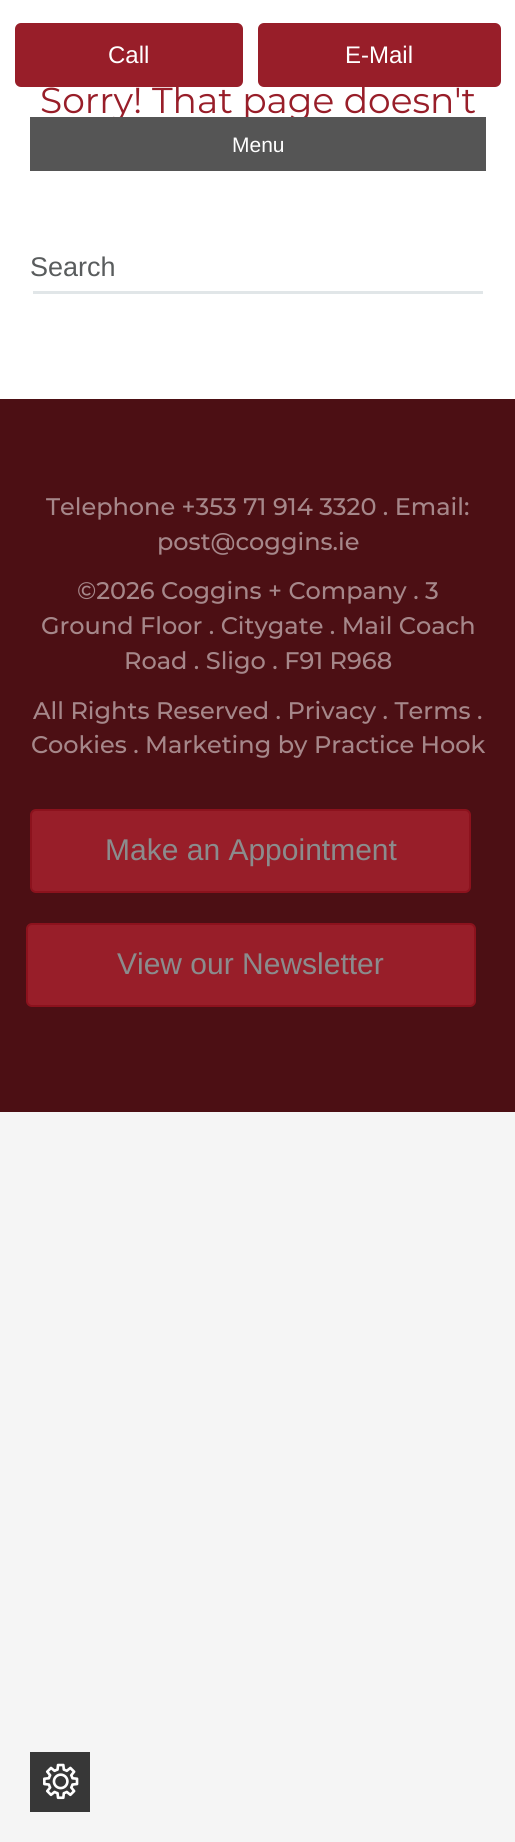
#include <cairo/cairo.h>
#include <math.h>
#include <stddef.h>

static cairo_t *cr;

static void use_color(int r, int g, int b) {
  cairo_set_source_rgb(cr, r / 255.0, g / 255.0, b / 255.0);
}

static void text(double x, double y, const char *s, const char *family, double size, int italic, int bold, int r, int g, int b) {
  cairo_select_font_face(cr, family, italic ? CAIRO_FONT_SLANT_ITALIC : CAIRO_FONT_SLANT_NORMAL,
    bold ? CAIRO_FONT_WEIGHT_BOLD : CAIRO_FONT_WEIGHT_NORMAL);
  cairo_set_font_size(cr, size);
  use_color(r, g, b);
  cairo_move_to(cr, x, y);
  cairo_show_text(cr, s);
}

static void box(double x, double y, double w, double h, int r, int g, int b) {
  use_color(r, g, b);
  cairo_rectangle(cr, x, y, w, h);
  cairo_fill(cr);
}

static void round_rect(double x, double y, double w, double h, double r) {
  cairo_new_sub_path(cr);
  cairo_arc(cr, x + w - r, y + h - r, r, 0, M_PI / 2);
  cairo_arc(cr, x + r, y + h - r, r, M_PI / 2, M_PI);
  cairo_arc(cr, x + r, y + r, r, M_PI, 1.5 * M_PI);
  cairo_arc(cr, x + w - r, y + r, r, 1.5 * M_PI, 2 * M_PI);
  cairo_close_path(cr);
}

static void picture(const char *path, double x, double y, double w, double h) {
  cairo_surface_t *image = cairo_image_surface_create_from_png(path);
  cairo_save(cr);
  cairo_set_source_surface(cr, image, x, y);
  cairo_rectangle(cr, x, y, w, h);
  cairo_fill(cr);
  cairo_restore(cr);
  cairo_surface_destroy(image);
}

static void draw(void) {
  use_color(245, 245, 245);
  cairo_paint(cr);
  box(0, 0, 515, 399, 255, 255, 255);
  use_color(152, 30, 41);
  round_rect(15, 23, 228, 64, 6);
  cairo_fill(cr);
  round_rect(258, 23, 243, 64, 6);
  cairo_fill(cr);
  box(33, 291, 450, 3, 225, 230, 232);
  box(0, 399, 515, 713, 76, 15, 20);
  use_color(152, 30, 41);
  round_rect(31, 810, 439, 82, 5);
  cairo_fill_preserve(cr);
  use_color(140, 18, 29);
  cairo_stroke(cr);
  use_color(152, 30, 41);
  round_rect(27, 924, 448, 82, 5);
  cairo_fill_preserve(cr);
  use_color(140, 18, 29);
  cairo_stroke(cr);
  box(30, 1752, 60, 60, 55, 55, 55);
  picture("img_01.png", 43, 1763, 36, 37);
  text(108, 63, "Call", "Liberation Sans", 24, 0, 0, 255, 255, 255);
  text(345, 63, "E-Mail", "Liberation Sans", 24, 0, 0, 255, 255, 255);
  text(40, 113, "Sorry! That page doesn't", "Montserrat", 36, 0, 0, 152, 30, 41);
  box(30, 117, 456, 54, 85, 85, 85);
  text(232, 152, "Menu", "Liberation Sans", 21, 0, 0, 255, 255, 255);
  text(30, 276, "Search", "Liberation Sans", 27, 0, 0, 89, 92, 93);
  text(46, 515, "Telephone +353 71 914 3320 . Email:", "Montserrat Medium", 24, 0, 0, 166, 135, 138);
  text(157, 550, "post@coggins.ie", "Montserrat Medium", 24, 0, 0, 166, 135, 138);
  text(77, 599, "©2026 Coggins + Company . 3", "Montserrat Medium", 24, 0, 0, 166, 135, 138);
  text(41, 634, "Ground Floor . Citygate . Mail Coach", "Montserrat Medium", 24, 0, 0, 166, 135, 138);
  text(124, 669, "Road . Sligo . F91 R968", "Montserrat Medium", 24, 0, 0, 166, 135, 138);
  text(33, 719, "All Rights Reserved . Privacy . Terms .", "Montserrat Medium", 24, 0, 0, 166, 135, 138);
  text(31, 753, "Cookies . Marketing by Practice Hook", "Montserrat Medium", 24, 0, 0, 166, 135, 138);
  text(105, 860, "Make an Appointment", "Liberation Sans", 30, 0, 0, 139, 140, 141);
  text(117, 974, "View our Newsletter", "Liberation Sans", 30, 0, 0, 139, 140, 141);
}

int main(void) {
  cairo_surface_t *surface = cairo_image_surface_create(CAIRO_FORMAT_RGB24, 515, 1842);
  cr = cairo_create(surface);
  cairo_font_options_t *options = cairo_font_options_create();
  cairo_font_options_set_hint_metrics(options, CAIRO_HINT_METRICS_OFF);
  cairo_font_options_set_hint_style(options, CAIRO_HINT_STYLE_NONE);
  cairo_set_font_options(cr, options);
  cairo_set_miter_limit(cr, 4);
  draw();
  cairo_surface_write_to_png(surface, "out.png");
  cairo_font_options_destroy(options);
  cairo_destroy(cr);
  cairo_surface_destroy(surface);
  return 0;
}
